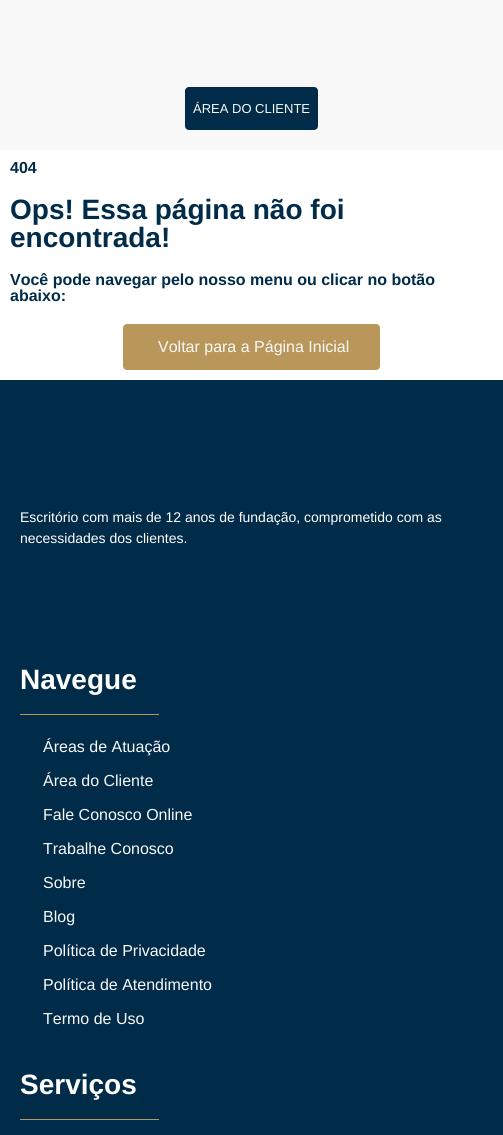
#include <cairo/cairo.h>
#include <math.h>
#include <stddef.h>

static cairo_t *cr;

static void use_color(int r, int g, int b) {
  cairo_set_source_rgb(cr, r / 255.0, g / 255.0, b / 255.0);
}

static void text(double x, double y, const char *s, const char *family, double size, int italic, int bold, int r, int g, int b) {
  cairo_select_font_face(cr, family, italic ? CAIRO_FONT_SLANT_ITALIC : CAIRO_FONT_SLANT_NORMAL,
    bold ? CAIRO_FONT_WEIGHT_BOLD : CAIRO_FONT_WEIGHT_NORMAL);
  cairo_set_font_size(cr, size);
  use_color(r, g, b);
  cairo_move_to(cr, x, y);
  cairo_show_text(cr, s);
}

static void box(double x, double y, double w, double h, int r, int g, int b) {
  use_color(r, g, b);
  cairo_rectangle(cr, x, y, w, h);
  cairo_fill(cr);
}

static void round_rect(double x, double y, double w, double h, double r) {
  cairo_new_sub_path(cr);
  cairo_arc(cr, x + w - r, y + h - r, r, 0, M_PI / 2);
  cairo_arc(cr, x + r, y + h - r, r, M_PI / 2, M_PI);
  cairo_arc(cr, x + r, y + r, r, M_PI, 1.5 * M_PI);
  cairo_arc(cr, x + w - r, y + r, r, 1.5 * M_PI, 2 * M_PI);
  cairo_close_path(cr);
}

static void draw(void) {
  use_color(255, 255, 255);
  cairo_paint(cr);
  box(0, 0, 503, 150, 248, 248, 248);
  use_color(0, 43, 73);
  round_rect(185, 87, 133, 43, 4);
  cairo_fill(cr);
  use_color(185, 151, 91);
  round_rect(123, 324, 257, 46, 4);
  cairo_fill(cr);
  box(0, 380, 503, 755, 0, 43, 73);
  box(20, 714, 139, 1, 185, 151, 91);
  box(20, 1119, 139, 1, 185, 151, 91);
  text(193, 113, "ÁREA DO CLIENTE", "Liberation Sans", 13, 0, 0, 248, 248, 248);
  text(10, 173, "404", "Liberation Sans", 16, 0, 1, 0, 43, 73);
  text(10, 219, "Ops! Essa página não foi", "Liberation Sans", 28, 0, 1, 0, 43, 73);
  text(10, 247, "encontrada!", "Liberation Sans", 28, 0, 1, 0, 43, 73);
  text(10, 285, "Você pode navegar pelo nosso menu ou clicar no botão", "Liberation Sans", 16, 0, 1, 0, 43, 73);
  text(10, 301, "abaixo:", "Liberation Sans", 16, 0, 1, 0, 43, 73);
  text(158, 352, "Voltar para a Página Inicial", "Liberation Sans", 16, 0, 0, 248, 248, 248);
  text(20, 522, "Escritório com mais de 12 anos de fundação, comprometido com as", "Liberation Sans", 14, 0, 0, 255, 255, 255);
  text(20, 543, "necessidades dos clientes.", "Liberation Sans", 14, 0, 0, 255, 255, 255);
  text(20, 689, "Navegue", "Liberation Sans", 28, 0, 1, 255, 255, 255);
  text(43, 752, "Áreas de Atuação", "Liberation Sans", 16, 0, 0, 248, 248, 248);
  text(43, 786, "Área do Cliente", "Liberation Sans", 16, 0, 0, 248, 248, 248);
  text(43, 820, "Fale Conosco Online", "Liberation Sans", 16, 0, 0, 248, 248, 248);
  text(43, 854, "Trabalhe Conosco", "Liberation Sans", 16, 0, 0, 248, 248, 248);
  text(43, 888, "Sobre", "Liberation Sans", 16, 0, 0, 248, 248, 248);
  text(43, 922, "Blog", "Liberation Sans", 16, 0, 0, 248, 248, 248);
  text(43, 956, "Política de Privacidade", "Liberation Sans", 16, 0, 0, 248, 248, 248);
  text(43, 990, "Política de Atendimento", "Liberation Sans", 16, 0, 0, 248, 248, 248);
  text(43, 1024, "Termo de Uso", "Liberation Sans", 16, 0, 0, 248, 248, 248);
  text(20, 1094, "Serviços", "Liberation Sans", 28, 0, 1, 255, 255, 255);
}

int main(void) {
  cairo_surface_t *surface = cairo_image_surface_create(CAIRO_FORMAT_RGB24, 503, 1135);
  cr = cairo_create(surface);
  cairo_font_options_t *options = cairo_font_options_create();
  cairo_font_options_set_hint_metrics(options, CAIRO_HINT_METRICS_OFF);
  cairo_font_options_set_hint_style(options, CAIRO_HINT_STYLE_NONE);
  cairo_set_font_options(cr, options);
  cairo_set_miter_limit(cr, 4);
  draw();
  cairo_surface_write_to_png(surface, "out.png");
  cairo_font_options_destroy(options);
  cairo_destroy(cr);
  cairo_surface_destroy(surface);
  return 0;
}
